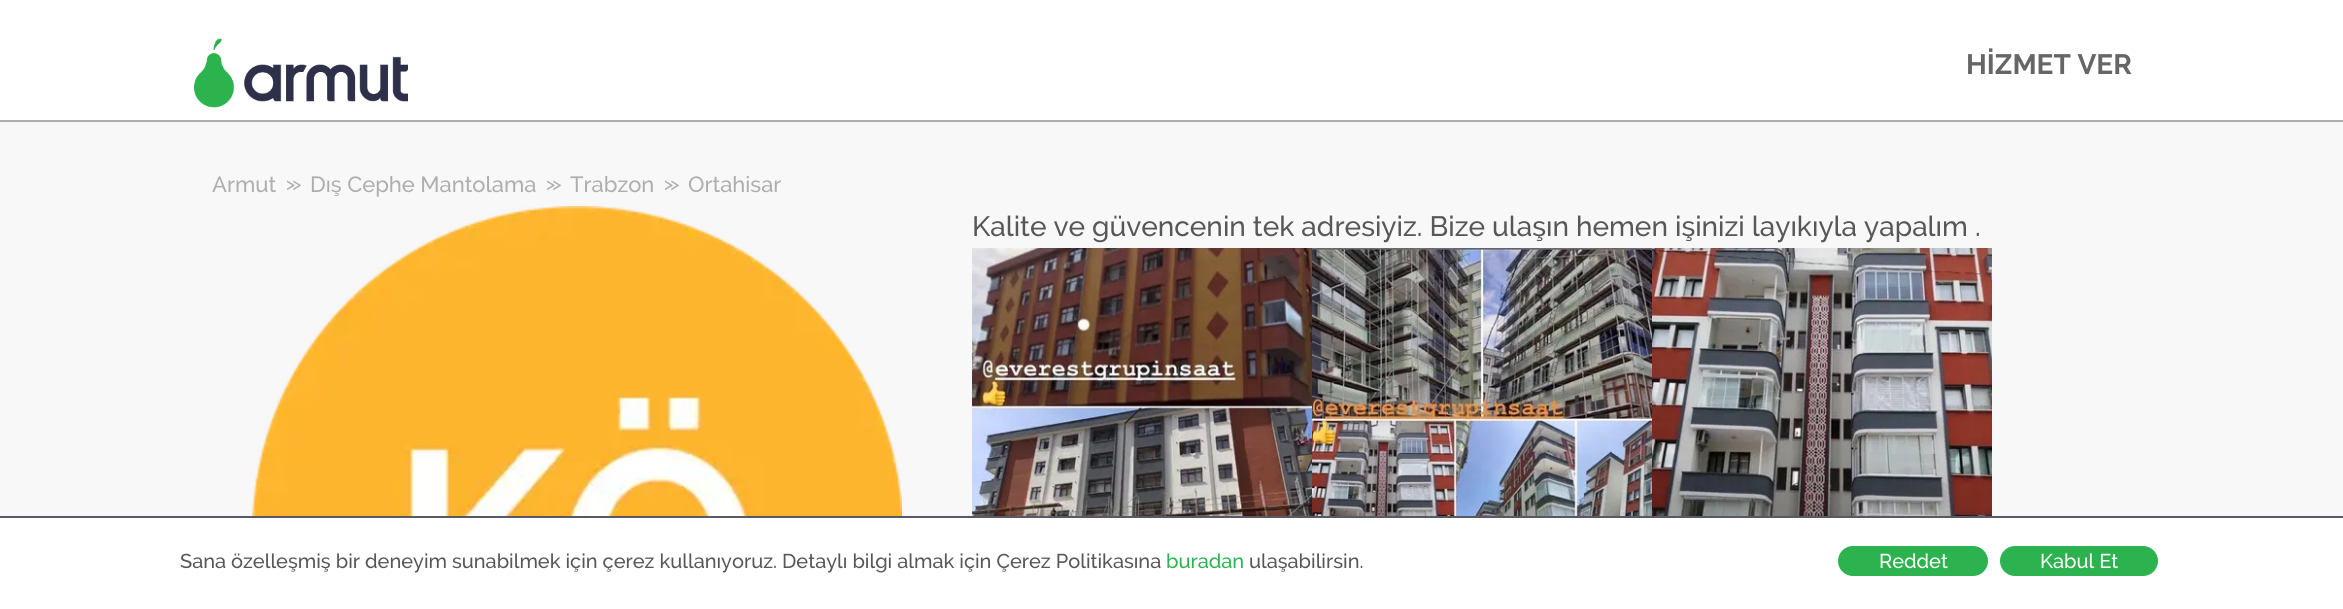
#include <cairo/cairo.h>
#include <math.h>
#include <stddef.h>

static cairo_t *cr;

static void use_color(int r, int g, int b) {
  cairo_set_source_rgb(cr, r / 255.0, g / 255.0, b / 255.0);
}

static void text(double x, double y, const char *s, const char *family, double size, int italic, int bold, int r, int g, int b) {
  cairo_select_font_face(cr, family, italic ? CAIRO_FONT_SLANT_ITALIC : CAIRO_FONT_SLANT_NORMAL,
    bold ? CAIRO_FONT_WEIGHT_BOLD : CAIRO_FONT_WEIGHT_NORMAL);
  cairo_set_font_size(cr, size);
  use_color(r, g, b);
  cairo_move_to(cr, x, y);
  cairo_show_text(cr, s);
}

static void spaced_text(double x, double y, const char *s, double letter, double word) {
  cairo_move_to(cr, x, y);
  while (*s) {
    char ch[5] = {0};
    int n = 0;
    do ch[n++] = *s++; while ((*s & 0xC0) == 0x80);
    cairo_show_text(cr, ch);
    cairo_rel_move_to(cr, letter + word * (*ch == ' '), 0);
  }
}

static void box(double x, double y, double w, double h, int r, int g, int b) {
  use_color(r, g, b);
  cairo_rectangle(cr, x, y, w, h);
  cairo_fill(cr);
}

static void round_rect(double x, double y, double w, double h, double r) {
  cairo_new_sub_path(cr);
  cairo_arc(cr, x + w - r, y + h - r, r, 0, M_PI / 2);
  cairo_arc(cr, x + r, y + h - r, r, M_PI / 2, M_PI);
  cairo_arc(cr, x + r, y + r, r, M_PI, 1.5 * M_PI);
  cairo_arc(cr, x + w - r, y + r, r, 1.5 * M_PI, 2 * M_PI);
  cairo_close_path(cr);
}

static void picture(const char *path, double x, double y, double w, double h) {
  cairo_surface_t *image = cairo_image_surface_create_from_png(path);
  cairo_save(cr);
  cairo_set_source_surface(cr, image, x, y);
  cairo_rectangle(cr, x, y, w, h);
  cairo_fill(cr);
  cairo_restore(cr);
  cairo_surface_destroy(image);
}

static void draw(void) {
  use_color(248, 248, 248);
  cairo_paint(cr);
  box(0, 0, 2343, 120, 255, 255, 255);
  box(0, 120, 2343, 2, 174, 174, 174);
  picture("img_01.png", 194, 38, 214, 70);
  picture("img_02.png", 252, 206, 650, 310);
  picture("img_03.png", 972, 248, 340, 268);
  picture("img_04.png", 1312, 248, 340, 268);
  picture("img_05.png", 1652, 248, 340, 268);
  box(0, 518, 2343, 91, 255, 255, 255);
  box(0, 516, 2343, 2, 88, 89, 101);
  use_color(44, 179, 79);
  round_rect(1838, 546, 150, 30, 15);
  cairo_fill(cr);
  round_rect(2000, 546, 158, 30, 15);
  cairo_fill(cr);
  text(1966, 74, "HİZMET VER", "Raleway", 28, 0, 1, 102, 102, 102);
  text(212, 192, "Armut", "Raleway Medium", 22, 0, 0, 174, 174, 174);
  cairo_set_font_size(cr, 18);
  spaced_text(286, 190, ">>", -3, 0);
  text(310, 192, "Dış Cephe Mantolama", "Raleway Medium", 22, 0, 0, 174, 174, 174);
  cairo_set_font_size(cr, 18);
  spaced_text(546, 190, ">>", -3, 0);
  text(570, 192, "Trabzon", "Raleway Medium", 22, 0, 0, 174, 174, 174);
  cairo_set_font_size(cr, 18);
  spaced_text(664, 190, ">>", -3, 0);
  text(688, 192, "Ortahisar", "Raleway Medium", 22, 0, 0, 174, 174, 174);
  text(972, 236, "Kalite ve güvencenin tek adresiyiz. Bize ulaşın hemen işinizi layıkıyla yapalım .", "Raleway Medium", 28, 0, 0, 87, 87, 87);
  text(180, 568, "Sana özelleşmiş bir deneyim sunabilmek için çerez kullanıyoruz. Detaylı bilgi almak için Çerez Politikasına", "Raleway Medium", 20, 0, 0, 87, 87, 87);
  text(1166, 568, "buradan", "Raleway Medium", 20, 0, 0, 44, 179, 79);
  text(1249, 568, "ulaşabilirsin.", "Raleway Medium", 20, 0, 0, 87, 87, 87);
  text(1879, 568, "Reddet", "Raleway Medium", 20, 0, 0, 255, 255, 255);
  text(2040, 568, "Kabul Et", "Raleway Medium", 20, 0, 0, 255, 255, 255);
}

int main(void) {
  cairo_surface_t *surface = cairo_image_surface_create(CAIRO_FORMAT_RGB24, 2343, 609);
  cr = cairo_create(surface);
  cairo_font_options_t *options = cairo_font_options_create();
  cairo_font_options_set_hint_metrics(options, CAIRO_HINT_METRICS_OFF);
  cairo_font_options_set_hint_style(options, CAIRO_HINT_STYLE_NONE);
  cairo_set_font_options(cr, options);
  cairo_set_miter_limit(cr, 4);
  draw();
  cairo_surface_write_to_png(surface, "out.png");
  cairo_font_options_destroy(options);
  cairo_destroy(cr);
  cairo_surface_destroy(surface);
  return 0;
}
